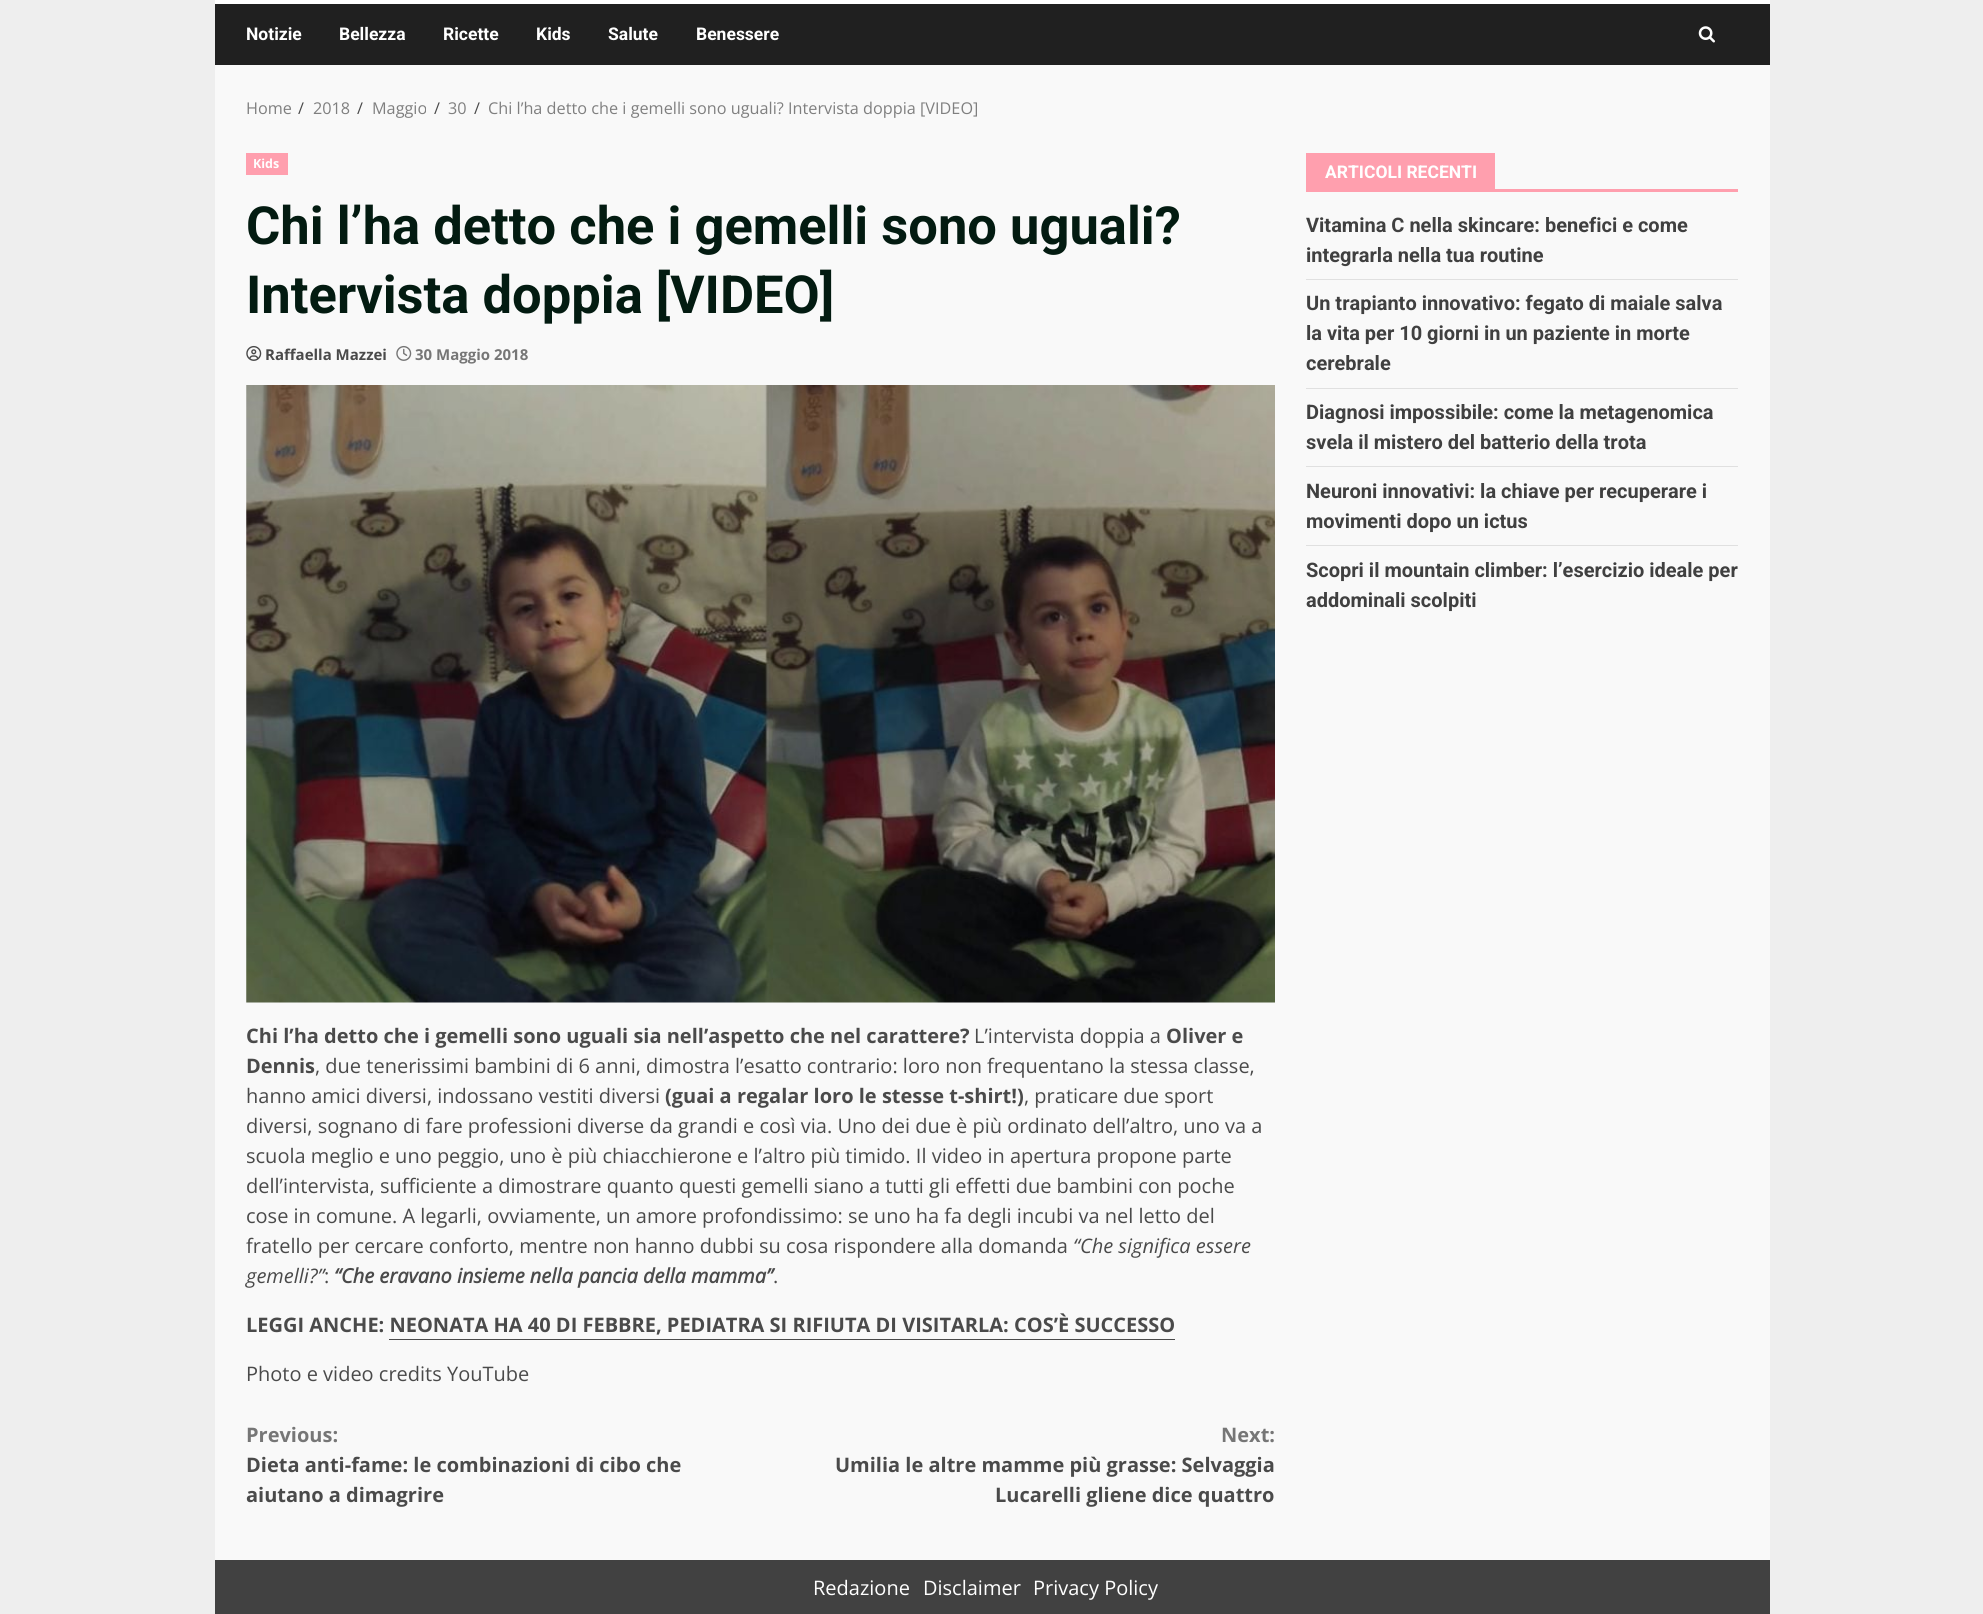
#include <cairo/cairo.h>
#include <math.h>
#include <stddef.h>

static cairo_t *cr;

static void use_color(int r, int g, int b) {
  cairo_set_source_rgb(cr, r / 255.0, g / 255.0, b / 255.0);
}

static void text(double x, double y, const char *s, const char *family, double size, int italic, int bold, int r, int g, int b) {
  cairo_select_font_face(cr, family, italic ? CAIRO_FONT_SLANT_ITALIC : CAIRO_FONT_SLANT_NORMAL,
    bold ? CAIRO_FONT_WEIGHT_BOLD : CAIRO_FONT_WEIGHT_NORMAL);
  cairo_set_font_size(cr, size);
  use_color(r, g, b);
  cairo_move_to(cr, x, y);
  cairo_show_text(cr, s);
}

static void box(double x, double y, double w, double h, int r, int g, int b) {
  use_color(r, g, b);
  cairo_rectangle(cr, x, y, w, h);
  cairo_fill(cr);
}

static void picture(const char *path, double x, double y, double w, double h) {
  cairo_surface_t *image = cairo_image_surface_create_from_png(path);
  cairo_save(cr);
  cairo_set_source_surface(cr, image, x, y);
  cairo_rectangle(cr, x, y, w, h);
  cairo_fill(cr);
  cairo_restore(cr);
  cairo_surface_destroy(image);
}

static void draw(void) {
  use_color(238, 238, 238);
  cairo_paint(cr);
  box(215, 65, 1555, 1495, 249, 249, 249);
  box(215, 0, 1555, 4, 255, 255, 255);
  box(215, 4, 1555, 61, 32, 32, 32);
  picture("img_01.png", 1698, 26, 17, 17);
  box(246, 153, 42, 22, 255, 159, 174);
  picture("img_02.png", 246, 345, 16, 16);
  picture("img_03.png", 396, 345, 16, 16);
  picture("img_04.png", 246, 385, 1029, 618);
  box(389, 1339, 786, 1, 74, 74, 74);
  box(1306, 189, 432, 3, 255, 159, 174);
  box(1306, 153, 189, 36, 255, 159, 174);
  box(1306, 279, 432, 1, 224, 224, 224);
  box(1306, 388, 432, 1, 224, 224, 224);
  box(1306, 466, 432, 1, 224, 224, 224);
  box(1306, 545, 432, 1, 224, 224, 224);
  box(215, 1560, 1555, 54, 65, 65, 65);
  text(246, 40, "Notizie", "Roboto", 17.5, 0, 1, 255, 255, 255);
  text(339, 40, "Bellezza", "Roboto", 17.5, 0, 1, 255, 255, 255);
  text(443, 40, "Ricette", "Roboto", 17.5, 0, 1, 255, 255, 255);
  text(536, 40, "Kids", "Roboto", 17.5, 0, 1, 255, 255, 255);
  text(608, 40, "Salute", "Roboto", 17.5, 0, 1, 255, 255, 255);
  text(696, 40, "Benessere", "Roboto", 17.5, 0, 1, 255, 255, 255);
  text(246, 114, "Home", "Open Sans", 16.25, 0, 0, 127, 127, 127);
  text(298, 114, "/", "Open Sans", 16.25, 0, 0, 74, 74, 74);
  text(313, 114, "2018", "Open Sans", 16.25, 0, 0, 127, 127, 127);
  text(357, 114, "/", "Open Sans", 16.25, 0, 0, 74, 74, 74);
  text(372, 114, "Maggio", "Open Sans", 16.25, 0, 0, 127, 127, 127);
  text(434, 114, "/", "Open Sans", 16.25, 0, 0, 74, 74, 74);
  text(448, 114, "30", "Open Sans", 16.25, 0, 0, 127, 127, 127);
  text(474, 114, "/", "Open Sans", 16.25, 0, 0, 74, 74, 74);
  text(488, 114, "Chi l’ha detto che i gemelli sono uguali? Intervista doppia [VIDEO]", "Open Sans", 16.25, 0, 0, 127, 127, 127);
  text(253, 168, "Kids", "Open Sans", 12.5, 0, 1, 255, 255, 255);
  text(246, 244, "Chi l’ha detto che i gemelli sono uguali?", "Roboto", 52.5, 0, 1, 3, 27, 17);
  text(246, 313, "Intervista doppia [VIDEO]", "Roboto", 52.5, 0, 1, 3, 27, 17);
  text(265, 360, "Raffaella Mazzei", "Open Sans", 15, 0, 1, 74, 74, 74);
  text(415, 360, "30 Maggio 2018", "Open Sans", 15, 0, 1, 118, 118, 118);
  text(246, 1043, "Chi l’ha detto che i gemelli sono uguali sia nell’aspetto che nel carattere?", "Open Sans", 20, 0, 1, 74, 74, 74);
  text(974, 1043, "L’intervista doppia a", "Open Sans", 20, 0, 0, 74, 74, 74);
  text(1166, 1043, "Oliver e", "Open Sans", 20, 0, 1, 74, 74, 74);
  text(246, 1073, "Dennis", "Open Sans", 20, 0, 1, 74, 74, 74);
  text(315, 1073, ", due tenerissimi bambini di 6 anni, dimostra l’esatto contrario: loro non frequentano la stessa classe,", "Open Sans", 20, 0, 0, 74, 74, 74);
  text(246, 1103, "hanno amici diversi, indossano vestiti diversi", "Open Sans", 20, 0, 0, 74, 74, 74);
  text(665, 1103, "(guai a regalar loro le stesse t-shirt!)", "Open Sans", 20, 0, 1, 74, 74, 74);
  text(1024, 1103, ", praticare due sport", "Open Sans", 20, 0, 0, 74, 74, 74);
  text(246, 1133, "diversi, sognano di fare professioni diverse da grandi e così via. Uno dei due è più ordinato dell’altro, uno va a", "Open Sans", 20, 0, 0, 74, 74, 74);
  text(246, 1163, "scuola meglio e uno peggio, uno è più chiacchierone e l’altro più timido. Il video in apertura propone parte", "Open Sans", 20, 0, 0, 74, 74, 74);
  text(246, 1193, "dell’intervista, sufficiente a dimostrare quanto questi gemelli siano a tutti gli effetti due bambini con poche", "Open Sans", 20, 0, 0, 74, 74, 74);
  text(246, 1223, "cose in comune. A legarli, ovviamente, un amore profondissimo: se uno ha fa degli incubi va nel letto del", "Open Sans", 20, 0, 0, 74, 74, 74);
  text(246, 1253, "fratello per cercare conforto, mentre non hanno dubbi su cosa rispondere alla domanda", "Open Sans", 20, 0, 0, 74, 74, 74);
  text(1073, 1253, "“Che significa essere", "Open Sans", 20, 1, 0, 74, 74, 74);
  text(246, 1283, "gemelli?”", "Open Sans", 20, 1, 0, 74, 74, 74);
  text(324, 1283, ":", "Open Sans", 20, 0, 0, 74, 74, 74);
  text(334, 1283, "“Che eravano insieme nella pancia della mamma”", "Open Sans", 20, 1, 1, 74, 74, 74);
  text(773, 1283, ".", "Open Sans", 20, 0, 0, 74, 74, 74);
  text(246, 1332, "LEGGI ANCHE: NEONATA HA 40 DI FEBBRE, PEDIATRA SI RIFIUTA DI VISITARLA: COS’È SUCCESSO", "Open Sans", 20, 0, 1, 74, 74, 74);
  text(246, 1381, "Photo e video credits YouTube", "Open Sans", 20, 0, 0, 74, 74, 74);
  text(246, 1442, "Previous:", "Open Sans", 20, 0, 1, 118, 118, 118);
  text(246, 1472, "Dieta anti-fame: le combinazioni di cibo che", "Open Sans", 20, 0, 1, 74, 74, 74);
  text(246, 1502, "aiutano a dimagrire", "Open Sans", 20, 0, 1, 74, 74, 74);
  text(1221, 1442, "Next:", "Open Sans", 20, 0, 1, 118, 118, 118);
  text(835, 1472, "Umilia le altre mamme più grasse: Selvaggia", "Open Sans", 20, 0, 1, 74, 74, 74);
  text(995, 1502, "Lucarelli gliene dice quattro", "Open Sans", 20, 0, 1, 74, 74, 74);
  text(1325, 178, "ARTICOLI RECENTI", "Roboto", 17.5, 0, 1, 255, 255, 255);
  text(1306, 232, "Vitamina C nella skincare: benefici e come", "Roboto", 20, 0, 1, 64, 64, 64);
  text(1306, 262, "integrarla nella tua routine", "Roboto", 20, 0, 1, 64, 64, 64);
  text(1306, 310, "Un trapianto innovativo: fegato di maiale salva", "Roboto", 20, 0, 1, 64, 64, 64);
  text(1306, 340, "la vita per 10 giorni in un paziente in morte", "Roboto", 20, 0, 1, 64, 64, 64);
  text(1306, 370, "cerebrale", "Roboto", 20, 0, 1, 64, 64, 64);
  text(1306, 419, "Diagnosi impossibile: come la metagenomica", "Roboto", 20, 0, 1, 64, 64, 64);
  text(1306, 449, "svela il mistero del batterio della trota", "Roboto", 20, 0, 1, 64, 64, 64);
  text(1306, 498, "Neuroni innovativi: la chiave per recuperare i", "Roboto", 20, 0, 1, 64, 64, 64);
  text(1306, 528, "movimenti dopo un ictus", "Roboto", 20, 0, 1, 64, 64, 64);
  text(1306, 577, "Scopri il mountain climber: l’esercizio ideale per", "Roboto", 20, 0, 1, 64, 64, 64);
  text(1306, 607, "addominali scolpiti", "Roboto", 20, 0, 1, 64, 64, 64);
  text(813, 1595, "Redazione", "Open Sans", 20, 0, 0, 255, 255, 255);
  text(923, 1595, "Disclaimer", "Open Sans", 20, 0, 0, 255, 255, 255);
  text(1033, 1595, "Privacy Policy", "Open Sans", 20, 0, 0, 255, 255, 255);
}

int main(void) {
  cairo_surface_t *surface = cairo_image_surface_create(CAIRO_FORMAT_RGB24, 1983, 1614);
  cr = cairo_create(surface);
  cairo_font_options_t *options = cairo_font_options_create();
  cairo_font_options_set_hint_metrics(options, CAIRO_HINT_METRICS_OFF);
  cairo_font_options_set_hint_style(options, CAIRO_HINT_STYLE_NONE);
  cairo_set_font_options(cr, options);
  cairo_set_miter_limit(cr, 4);
  draw();
  cairo_surface_write_to_png(surface, "out.png");
  cairo_font_options_destroy(options);
  cairo_destroy(cr);
  cairo_surface_destroy(surface);
  return 0;
}
